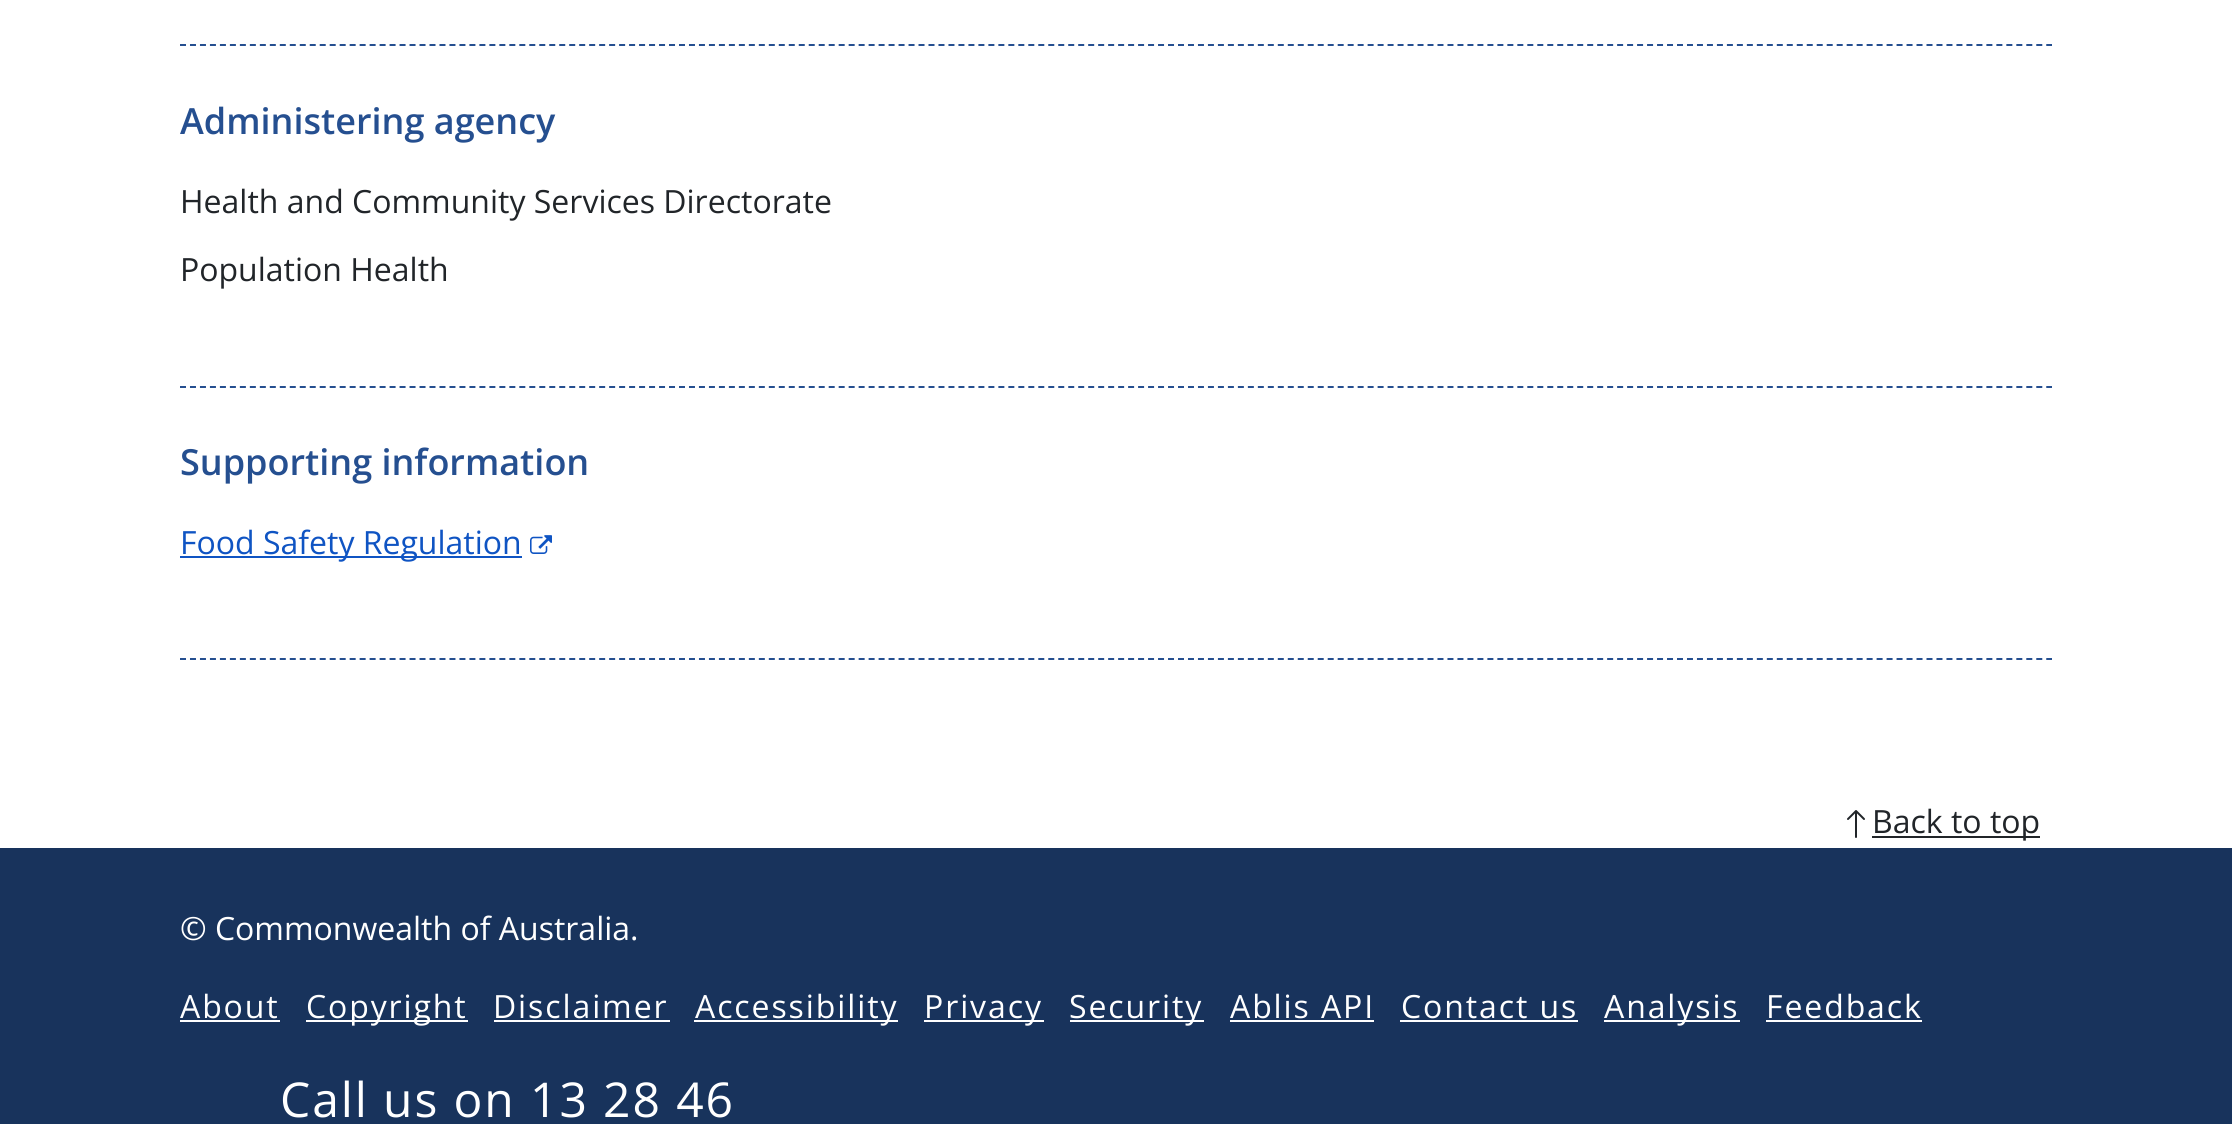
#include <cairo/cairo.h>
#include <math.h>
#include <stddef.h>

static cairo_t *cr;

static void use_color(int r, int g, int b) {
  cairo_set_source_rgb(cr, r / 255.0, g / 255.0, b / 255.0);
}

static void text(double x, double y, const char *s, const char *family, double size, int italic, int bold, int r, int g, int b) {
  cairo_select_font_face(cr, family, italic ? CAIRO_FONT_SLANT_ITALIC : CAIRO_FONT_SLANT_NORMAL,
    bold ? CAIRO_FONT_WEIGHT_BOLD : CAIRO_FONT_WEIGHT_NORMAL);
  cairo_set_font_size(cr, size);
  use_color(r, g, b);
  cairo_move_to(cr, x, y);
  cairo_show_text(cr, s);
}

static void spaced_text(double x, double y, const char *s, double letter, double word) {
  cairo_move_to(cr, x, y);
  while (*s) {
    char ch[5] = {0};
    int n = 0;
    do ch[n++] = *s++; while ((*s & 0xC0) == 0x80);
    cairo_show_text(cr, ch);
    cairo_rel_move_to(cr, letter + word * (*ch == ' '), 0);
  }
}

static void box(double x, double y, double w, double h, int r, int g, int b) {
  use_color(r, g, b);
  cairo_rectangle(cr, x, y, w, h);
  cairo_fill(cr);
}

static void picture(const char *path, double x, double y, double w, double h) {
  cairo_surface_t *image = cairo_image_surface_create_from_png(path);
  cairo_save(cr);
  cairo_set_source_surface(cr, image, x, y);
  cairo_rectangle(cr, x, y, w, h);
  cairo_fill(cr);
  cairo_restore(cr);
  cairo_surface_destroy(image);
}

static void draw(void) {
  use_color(255, 255, 255);
  cairo_paint(cr);
  cairo_new_path(cr);
  cairo_move_to(cr, 180, 45);
  cairo_line_to(cr, 2052, 45);
  use_color(37, 79, 144);
  cairo_set_dash(cr, (double[]){6, 3.98}, 2, 0);
  cairo_stroke(cr);
  cairo_new_path(cr);
  cairo_move_to(cr, 180, 387);
  cairo_line_to(cr, 2052, 387);
  cairo_stroke(cr);
  cairo_new_path(cr);
  cairo_move_to(cr, 180, 659);
  cairo_line_to(cr, 2052, 659);
  cairo_stroke(cr);
  box(180, 556, 342, 2, 15, 84, 195);
  picture("img_01.png", 530, 535, 22, 19);
  picture("img_02.png", 1847, 810, 18, 28);
  box(1872, 836, 168, 2, 33, 37, 41);
  box(0, 848, 2232, 276, 24, 51, 92);
  box(180, 1020, 100, 2, 255, 255, 255);
  box(306, 1020, 162, 2, 255, 255, 255);
  box(494, 1020, 176, 2, 255, 255, 255);
  box(694, 1020, 204, 2, 255, 255, 255);
  box(924, 1020, 120, 2, 255, 255, 255);
  box(1070, 1020, 134, 2, 255, 255, 255);
  box(1230, 1020, 144, 2, 255, 255, 255);
  box(1400, 1020, 178, 2, 255, 255, 255);
  box(1604, 1020, 136, 2, 255, 255, 255);
  box(1766, 1020, 156, 2, 255, 255, 255);
  text(180, 134, "Administering agency", "Open Sans SemiBold", 36, 0, 0, 37, 79, 144);
  text(180, 213, "Health and Community Services Directorate", "Open Sans", 32, 0, 0, 33, 37, 41);
  text(180, 281, "Population Health", "Open Sans", 32, 0, 0, 33, 37, 41);
  text(180, 475, "Supporting information", "Open Sans SemiBold", 36, 0, 0, 37, 79, 144);
  text(180, 554, "Food Safety Regulation", "Open Sans", 32, 0, 0, 15, 84, 195);
  text(1872, 833, "Back to top", "Open Sans", 32, 0, 0, 33, 37, 41);
  text(180, 940, "© Commonwealth of Australia.", "Open Sans", 32, 0, 0, 255, 255, 255);
  spaced_text(180, 1018, "About", 1.9, 0);
  spaced_text(306, 1018, "Copyright", 1.9, 0);
  spaced_text(493, 1018, "Disclaimer", 1.9, 0);
  spaced_text(695, 1018, "Accessibility", 1.9, 0);
  spaced_text(924, 1018, "Privacy", 1.9, 0);
  spaced_text(1069, 1018, "Security", 1.9, 0);
  spaced_text(1230, 1018, "Ablis API", 1.9, 0);
  spaced_text(1401, 1018, "Contact us", 1.9, 0);
  spaced_text(1604, 1018, "Analysis", 1.9, 0);
  spaced_text(1766, 1018, "Feedback", 1.9, 0);
  cairo_set_font_size(cr, 48);
  spaced_text(280, 1117, "Call us on 13 28 46", 1.9, 0);
}

int main(void) {
  cairo_surface_t *surface = cairo_image_surface_create(CAIRO_FORMAT_RGB24, 2232, 1124);
  cr = cairo_create(surface);
  cairo_font_options_t *options = cairo_font_options_create();
  cairo_font_options_set_hint_metrics(options, CAIRO_HINT_METRICS_OFF);
  cairo_font_options_set_hint_style(options, CAIRO_HINT_STYLE_NONE);
  cairo_set_font_options(cr, options);
  cairo_set_miter_limit(cr, 4);
  draw();
  cairo_surface_write_to_png(surface, "out.png");
  cairo_font_options_destroy(options);
  cairo_destroy(cr);
  cairo_surface_destroy(surface);
  return 0;
}
